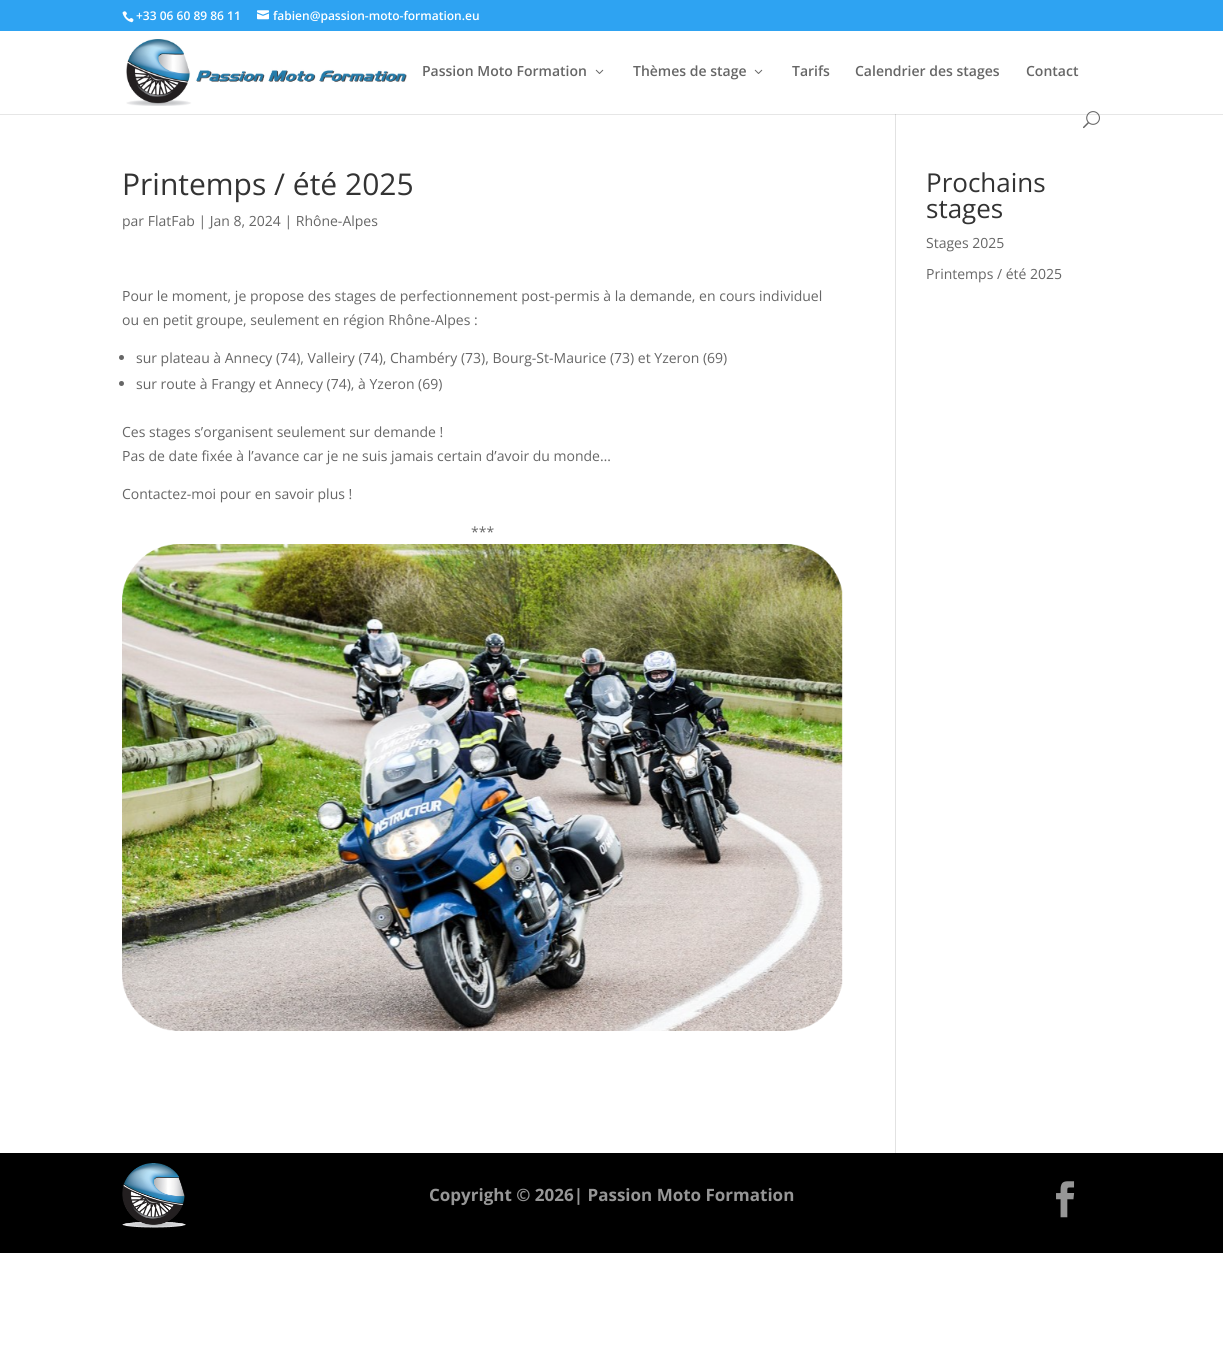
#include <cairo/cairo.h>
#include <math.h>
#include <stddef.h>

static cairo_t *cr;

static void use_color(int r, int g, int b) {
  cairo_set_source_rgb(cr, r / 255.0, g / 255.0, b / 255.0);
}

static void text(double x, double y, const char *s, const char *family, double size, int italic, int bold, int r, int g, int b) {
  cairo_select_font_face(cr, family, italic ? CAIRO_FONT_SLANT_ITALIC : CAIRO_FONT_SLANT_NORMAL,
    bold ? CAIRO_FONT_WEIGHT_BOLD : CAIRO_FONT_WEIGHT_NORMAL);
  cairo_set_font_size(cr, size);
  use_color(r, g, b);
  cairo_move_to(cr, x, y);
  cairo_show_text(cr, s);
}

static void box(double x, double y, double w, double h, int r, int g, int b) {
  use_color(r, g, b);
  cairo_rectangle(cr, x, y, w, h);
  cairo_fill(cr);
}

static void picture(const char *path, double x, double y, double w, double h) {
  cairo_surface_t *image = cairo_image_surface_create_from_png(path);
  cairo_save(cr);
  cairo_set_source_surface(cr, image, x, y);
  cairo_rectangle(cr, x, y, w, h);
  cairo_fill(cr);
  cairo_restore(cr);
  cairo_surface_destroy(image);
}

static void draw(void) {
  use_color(255, 255, 255);
  cairo_paint(cr);
  box(0, 114, 1223, 1, 230, 230, 230);
  box(0, 0, 1223, 31, 46, 163, 242);
  picture("img_01.png", 122, 11, 12, 12);
  picture("img_02.png", 257, 10, 12, 10);
  box(895, 111, 1, 1042, 226, 226, 226);
  box(895, 111, 1, 3, 255, 255, 255);
  picture("img_03.png", 126, 39, 281, 67);
  picture("img_04.png", 595, 69, 9, 5);
  picture("img_04.png", 754, 69, 9, 5);
  picture("img_05.png", 1083, 111, 17, 18);
  box(895, 114, 1, 1, 203, 203, 203);
  use_color(102, 102, 102);
  cairo_arc(cr, 121.5, 357.5, 2.5, 0, 2 * M_PI);
  cairo_fill(cr);
  cairo_arc(cr, 121.5, 383.5, 2.5, 0, 2 * M_PI);
  cairo_fill(cr);
  picture("img_06.png", 122, 544, 721, 487);
  box(0, 1153, 1223, 100, 0, 0, 0);
  picture("img_07.png", 122, 1163, 64, 65);
  picture("img_08.png", 1056, 1181, 19, 37);
  text(136, 20, "+33 06 60 89 86 11", "Open Sans SemiBold", 12, 0, 0, 255, 255, 255);
  text(273, 20, "fabien@passion-moto-formation.eu", "Open Sans SemiBold", 12, 0, 0, 255, 255, 255);
  text(422, 76, "Passion Moto Formation", "Open Sans SemiBold", 14, 0, 0, 102, 102, 102);
  text(633, 76, "Thèmes de stage", "Open Sans SemiBold", 14, 0, 0, 102, 102, 102);
  text(792, 76, "Tarifs", "Open Sans SemiBold", 14, 0, 0, 102, 102, 102);
  text(855, 76, "Calendrier des stages", "Open Sans SemiBold", 14, 0, 0, 102, 102, 102);
  text(1026, 76, "Contact", "Open Sans SemiBold", 14, 0, 0, 102, 102, 102);
  text(122, 195, "Printemps / été 2025", "Open Sans", 30, 0, 0, 51, 51, 51);
  text(122, 226, "par FlatFab | Jan 8, 2024 | Rhône-Alpes", "Open Sans", 14, 0, 0, 102, 102, 102);
  text(122, 301, "Pour le moment, je propose des stages de perfectionnement post-permis à la demande, en cours individuel", "Open Sans", 14, 0, 0, 102, 102, 102);
  text(122, 325, "ou en petit groupe, seulement en région Rhône-Alpes :", "Open Sans", 14, 0, 0, 102, 102, 102);
  text(136, 363, "sur plateau à Annecy (74), Valleiry (74), Chambéry (73), Bourg-St-Maurice (73) et Yzeron (69)", "Open Sans", 14, 0, 0, 102, 102, 102);
  text(136, 389, "sur route à Frangy et Annecy (74), à Yzeron (69)", "Open Sans", 14, 0, 0, 102, 102, 102);
  text(122, 437, "Ces stages s’organisent seulement sur demande !", "Open Sans", 14, 0, 0, 102, 102, 102);
  text(122, 461, "Pas de date fixée à l’avance car je ne suis jamais certain d’avoir du monde…", "Open Sans", 14, 0, 0, 102, 102, 102);
  text(122, 499, "Contactez-moi pour en savoir plus !", "Open Sans", 14, 0, 0, 102, 102, 102);
  text(471, 537, "***", "Open Sans", 14, 0, 0, 102, 102, 102);
  text(926, 192, "Prochains", "Open Sans", 26, 0, 0, 51, 51, 51);
  text(926, 218, "stages", "Open Sans", 26, 0, 0, 51, 51, 51);
  text(926, 248, "Stages 2025", "Open Sans", 14, 0, 0, 102, 102, 102);
  text(926, 279, "Printemps / été 2025", "Open Sans", 14, 0, 0, 102, 102, 102);
  text(429, 1201, "Copyright © 2026| Passion Moto Formation", "Open Sans", 17, 0, 1, 150, 150, 150);
}

int main(void) {
  cairo_surface_t *surface = cairo_image_surface_create(CAIRO_FORMAT_RGB24, 1223, 1356);
  cr = cairo_create(surface);
  cairo_font_options_t *options = cairo_font_options_create();
  cairo_font_options_set_hint_metrics(options, CAIRO_HINT_METRICS_OFF);
  cairo_font_options_set_hint_style(options, CAIRO_HINT_STYLE_NONE);
  cairo_set_font_options(cr, options);
  cairo_set_miter_limit(cr, 4);
  draw();
  cairo_surface_write_to_png(surface, "out.png");
  cairo_font_options_destroy(options);
  cairo_destroy(cr);
  cairo_surface_destroy(surface);
  return 0;
}
